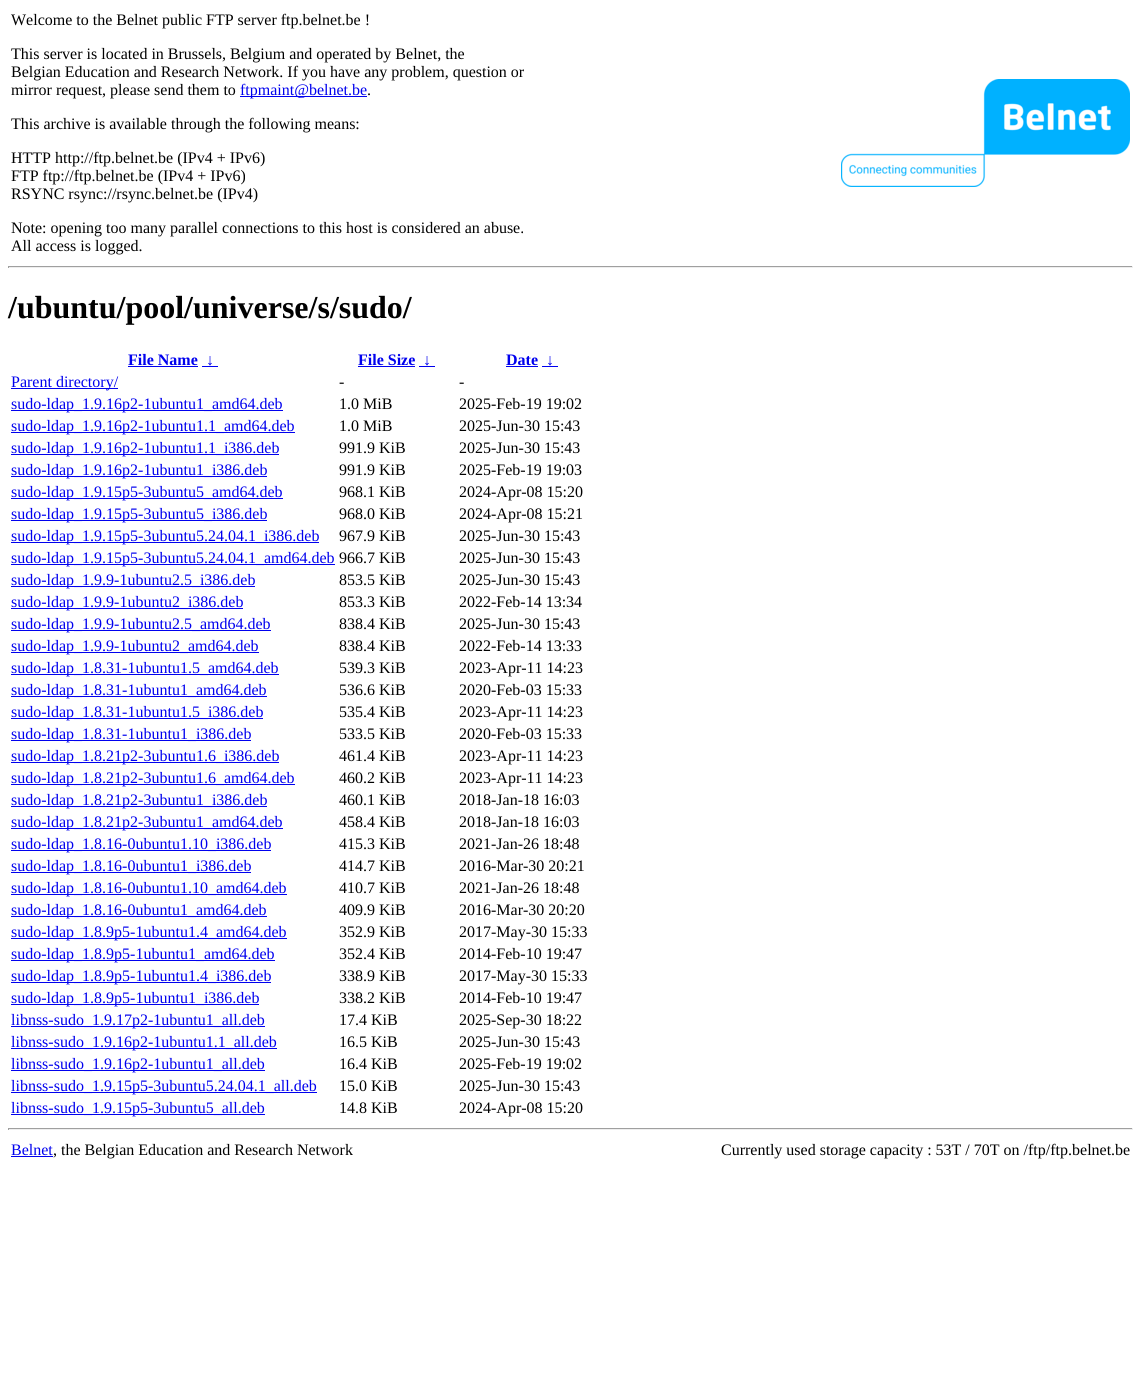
#include <cairo/cairo.h>
#include <math.h>
#include <stddef.h>

static cairo_t *cr;

static void use_color(int r, int g, int b) {
  cairo_set_source_rgb(cr, r / 255.0, g / 255.0, b / 255.0);
}

static void text(double x, double y, const char *s, const char *family, double size, int italic, int bold, int r, int g, int b) {
  cairo_select_font_face(cr, family, italic ? CAIRO_FONT_SLANT_ITALIC : CAIRO_FONT_SLANT_NORMAL,
    bold ? CAIRO_FONT_WEIGHT_BOLD : CAIRO_FONT_WEIGHT_NORMAL);
  cairo_set_font_size(cr, size);
  use_color(r, g, b);
  cairo_move_to(cr, x, y);
  cairo_show_text(cr, s);
}

static void box(double x, double y, double w, double h, int r, int g, int b) {
  use_color(r, g, b);
  cairo_rectangle(cr, x, y, w, h);
  cairo_fill(cr);
}

static void picture(const char *path, double x, double y, double w, double h) {
  cairo_surface_t *image = cairo_image_surface_create_from_png(path);
  cairo_save(cr);
  cairo_set_source_surface(cr, image, x, y);
  cairo_rectangle(cr, x, y, w, h);
  cairo_fill(cr);
  cairo_restore(cr);
  cairo_surface_destroy(image);
}

static void draw(void) {
  use_color(255, 255, 255);
  cairo_paint(cr);
  box(240, 96, 127, 1, 0, 0, 238);
  picture("img_01.png", 841, 79, 289, 108);
  box(8, 266, 1125, 1, 159, 159, 159);
  box(1132, 266, 1, 2, 238, 238, 238);
  box(8, 267, 1125, 1, 238, 238, 238);
  box(8, 266, 1, 2, 159, 159, 159);
  box(128, 366, 70, 1, 0, 0, 238);
  box(202, 366, 16, 1, 0, 0, 238);
  box(358, 366, 57, 1, 0, 0, 238);
  box(419, 366, 16, 1, 0, 0, 238);
  box(506, 366, 32, 1, 0, 0, 238);
  box(542, 366, 16, 1, 0, 0, 238);
  box(11, 388, 107, 1, 0, 0, 238);
  box(11, 410, 272, 1, 0, 0, 238);
  box(11, 432, 284, 1, 0, 0, 238);
  box(11, 454, 268, 1, 0, 0, 238);
  box(11, 476, 256, 1, 0, 0, 238);
  box(11, 498, 272, 1, 0, 0, 238);
  box(11, 520, 256, 1, 0, 0, 238);
  box(11, 542, 308, 1, 0, 0, 238);
  box(11, 564, 324, 1, 0, 0, 238);
  box(11, 586, 244, 1, 0, 0, 238);
  box(11, 608, 232, 1, 0, 0, 238);
  box(11, 630, 260, 1, 0, 0, 238);
  box(11, 652, 248, 1, 0, 0, 238);
  box(11, 674, 268, 1, 0, 0, 238);
  box(11, 696, 256, 1, 0, 0, 238);
  box(11, 718, 252, 1, 0, 0, 238);
  box(11, 740, 240, 1, 0, 0, 238);
  box(11, 762, 268, 1, 0, 0, 238);
  box(11, 784, 284, 1, 0, 0, 238);
  box(11, 806, 256, 1, 0, 0, 238);
  box(11, 828, 272, 1, 0, 0, 238);
  box(11, 850, 260, 1, 0, 0, 238);
  box(11, 872, 240, 1, 0, 0, 238);
  box(11, 894, 276, 1, 0, 0, 238);
  box(11, 916, 256, 1, 0, 0, 238);
  box(11, 938, 276, 1, 0, 0, 238);
  box(11, 960, 264, 1, 0, 0, 238);
  box(11, 982, 260, 1, 0, 0, 238);
  box(11, 1004, 248, 1, 0, 0, 238);
  box(11, 1026, 254, 1, 0, 0, 238);
  box(11, 1048, 266, 1, 0, 0, 238);
  box(11, 1070, 254, 1, 0, 0, 238);
  box(11, 1092, 306, 1, 0, 0, 238);
  box(11, 1114, 254, 1, 0, 0, 238);
  box(8, 1128, 1125, 1, 159, 159, 159);
  box(1132, 1128, 1, 2, 238, 238, 238);
  box(8, 1129, 1125, 1, 238, 238, 238);
  box(8, 1128, 1, 2, 159, 159, 159);
  box(11, 1156, 42, 1, 0, 0, 238);
  text(11, 25, "Welcome to the Belnet public FTP server ftp.belnet.be !", "Liberation Serif", 16, 0, 0, 0, 0, 0);
  text(11, 59, "This server is located in Brussels, Belgium and operated by Belnet, the", "Liberation Serif", 16, 0, 0, 0, 0, 0);
  text(11, 77, "Belgian Education and Research Network. If you have any problem, question or", "Liberation Serif", 16, 0, 0, 0, 0, 0);
  text(11, 95, "mirror request, please send them to", "Liberation Serif", 16, 0, 0, 0, 0, 0);
  text(240, 95, "ftpmaint@belnet.be", "Liberation Serif", 16, 0, 0, 0, 0, 238);
  text(367, 95, ".", "Liberation Serif", 16, 0, 0, 0, 0, 0);
  text(11, 129, "This archive is available through the following means:", "Liberation Serif", 16, 0, 0, 0, 0, 0);
  text(11, 163, "HTTP http://ftp.belnet.be (IPv4 + IPv6)", "Liberation Serif", 16, 0, 0, 0, 0, 0);
  text(11, 181, "FTP ftp://ftp.belnet.be (IPv4 + IPv6)", "Liberation Serif", 16, 0, 0, 0, 0, 0);
  text(11, 199, "RSYNC rsync://rsync.belnet.be (IPv4)", "Liberation Serif", 16, 0, 0, 0, 0, 0);
  text(11, 233, "Note: opening too many parallel connections to this host is considered an abuse.", "Liberation Serif", 16, 0, 0, 0, 0, 0);
  text(11, 251, "All access is logged.", "Liberation Serif", 16, 0, 0, 0, 0, 0);
  text(8, 318, "/ubuntu/pool/universe/s/sudo/", "Liberation Serif", 32, 0, 1, 0, 0, 0);
  text(128, 365, "File Name", "Liberation Serif", 16, 0, 1, 0, 0, 238);
  text(206, 365, "↓", "Liberation Serif", 16, 0, 1, 0, 0, 238);
  text(358, 365, "File Size", "Liberation Serif", 16, 0, 1, 0, 0, 238);
  text(423, 365, "↓", "Liberation Serif", 16, 0, 1, 0, 0, 238);
  text(506, 365, "Date", "Liberation Serif", 16, 0, 1, 0, 0, 238);
  text(546, 365, "↓", "Liberation Serif", 16, 0, 1, 0, 0, 238);
  text(11, 387, "Parent directory/", "Liberation Serif", 16, 0, 0, 0, 0, 238);
  text(339, 387, "-", "Liberation Serif", 16, 0, 0, 0, 0, 0);
  text(459, 387, "-", "Liberation Serif", 16, 0, 0, 0, 0, 0);
  text(11, 409, "sudo-ldap_1.9.16p2-1ubuntu1_amd64.deb", "Liberation Serif", 16, 0, 0, 0, 0, 238);
  text(339, 409, "1.0 MiB", "Liberation Serif", 16, 0, 0, 0, 0, 0);
  text(459, 409, "2025-Feb-19 19:02", "Liberation Serif", 16, 0, 0, 0, 0, 0);
  text(11, 431, "sudo-ldap_1.9.16p2-1ubuntu1.1_amd64.deb", "Liberation Serif", 16, 0, 0, 0, 0, 238);
  text(339, 431, "1.0 MiB", "Liberation Serif", 16, 0, 0, 0, 0, 0);
  text(459, 431, "2025-Jun-30 15:43", "Liberation Serif", 16, 0, 0, 0, 0, 0);
  text(11, 453, "sudo-ldap_1.9.16p2-1ubuntu1.1_i386.deb", "Liberation Serif", 16, 0, 0, 0, 0, 238);
  text(339, 453, "991.9 KiB", "Liberation Serif", 16, 0, 0, 0, 0, 0);
  text(459, 453, "2025-Jun-30 15:43", "Liberation Serif", 16, 0, 0, 0, 0, 0);
  text(11, 475, "sudo-ldap_1.9.16p2-1ubuntu1_i386.deb", "Liberation Serif", 16, 0, 0, 0, 0, 238);
  text(339, 475, "991.9 KiB", "Liberation Serif", 16, 0, 0, 0, 0, 0);
  text(459, 475, "2025-Feb-19 19:03", "Liberation Serif", 16, 0, 0, 0, 0, 0);
  text(11, 497, "sudo-ldap_1.9.15p5-3ubuntu5_amd64.deb", "Liberation Serif", 16, 0, 0, 0, 0, 238);
  text(339, 497, "968.1 KiB", "Liberation Serif", 16, 0, 0, 0, 0, 0);
  text(459, 497, "2024-Apr-08 15:20", "Liberation Serif", 16, 0, 0, 0, 0, 0);
  text(11, 519, "sudo-ldap_1.9.15p5-3ubuntu5_i386.deb", "Liberation Serif", 16, 0, 0, 0, 0, 238);
  text(339, 519, "968.0 KiB", "Liberation Serif", 16, 0, 0, 0, 0, 0);
  text(459, 519, "2024-Apr-08 15:21", "Liberation Serif", 16, 0, 0, 0, 0, 0);
  text(11, 541, "sudo-ldap_1.9.15p5-3ubuntu5.24.04.1_i386.deb", "Liberation Serif", 16, 0, 0, 0, 0, 238);
  text(339, 541, "967.9 KiB", "Liberation Serif", 16, 0, 0, 0, 0, 0);
  text(459, 541, "2025-Jun-30 15:43", "Liberation Serif", 16, 0, 0, 0, 0, 0);
  text(11, 563, "sudo-ldap_1.9.15p5-3ubuntu5.24.04.1_amd64.deb", "Liberation Serif", 16, 0, 0, 0, 0, 238);
  text(339, 563, "966.7 KiB", "Liberation Serif", 16, 0, 0, 0, 0, 0);
  text(459, 563, "2025-Jun-30 15:43", "Liberation Serif", 16, 0, 0, 0, 0, 0);
  text(11, 585, "sudo-ldap_1.9.9-1ubuntu2.5_i386.deb", "Liberation Serif", 16, 0, 0, 0, 0, 238);
  text(339, 585, "853.5 KiB", "Liberation Serif", 16, 0, 0, 0, 0, 0);
  text(459, 585, "2025-Jun-30 15:43", "Liberation Serif", 16, 0, 0, 0, 0, 0);
  text(11, 607, "sudo-ldap_1.9.9-1ubuntu2_i386.deb", "Liberation Serif", 16, 0, 0, 0, 0, 238);
  text(339, 607, "853.3 KiB", "Liberation Serif", 16, 0, 0, 0, 0, 0);
  text(459, 607, "2022-Feb-14 13:34", "Liberation Serif", 16, 0, 0, 0, 0, 0);
  text(11, 629, "sudo-ldap_1.9.9-1ubuntu2.5_amd64.deb", "Liberation Serif", 16, 0, 0, 0, 0, 238);
  text(339, 629, "838.4 KiB", "Liberation Serif", 16, 0, 0, 0, 0, 0);
  text(459, 629, "2025-Jun-30 15:43", "Liberation Serif", 16, 0, 0, 0, 0, 0);
  text(11, 651, "sudo-ldap_1.9.9-1ubuntu2_amd64.deb", "Liberation Serif", 16, 0, 0, 0, 0, 238);
  text(339, 651, "838.4 KiB", "Liberation Serif", 16, 0, 0, 0, 0, 0);
  text(459, 651, "2022-Feb-14 13:33", "Liberation Serif", 16, 0, 0, 0, 0, 0);
  text(11, 673, "sudo-ldap_1.8.31-1ubuntu1.5_amd64.deb", "Liberation Serif", 16, 0, 0, 0, 0, 238);
  text(339, 673, "539.3 KiB", "Liberation Serif", 16, 0, 0, 0, 0, 0);
  text(459, 673, "2023-Apr-11 14:23", "Liberation Serif", 16, 0, 0, 0, 0, 0);
  text(11, 695, "sudo-ldap_1.8.31-1ubuntu1_amd64.deb", "Liberation Serif", 16, 0, 0, 0, 0, 238);
  text(339, 695, "536.6 KiB", "Liberation Serif", 16, 0, 0, 0, 0, 0);
  text(459, 695, "2020-Feb-03 15:33", "Liberation Serif", 16, 0, 0, 0, 0, 0);
  text(11, 717, "sudo-ldap_1.8.31-1ubuntu1.5_i386.deb", "Liberation Serif", 16, 0, 0, 0, 0, 238);
  text(339, 717, "535.4 KiB", "Liberation Serif", 16, 0, 0, 0, 0, 0);
  text(459, 717, "2023-Apr-11 14:23", "Liberation Serif", 16, 0, 0, 0, 0, 0);
  text(11, 739, "sudo-ldap_1.8.31-1ubuntu1_i386.deb", "Liberation Serif", 16, 0, 0, 0, 0, 238);
  text(339, 739, "533.5 KiB", "Liberation Serif", 16, 0, 0, 0, 0, 0);
  text(459, 739, "2020-Feb-03 15:33", "Liberation Serif", 16, 0, 0, 0, 0, 0);
  text(11, 761, "sudo-ldap_1.8.21p2-3ubuntu1.6_i386.deb", "Liberation Serif", 16, 0, 0, 0, 0, 238);
  text(339, 761, "461.4 KiB", "Liberation Serif", 16, 0, 0, 0, 0, 0);
  text(459, 761, "2023-Apr-11 14:23", "Liberation Serif", 16, 0, 0, 0, 0, 0);
  text(11, 783, "sudo-ldap_1.8.21p2-3ubuntu1.6_amd64.deb", "Liberation Serif", 16, 0, 0, 0, 0, 238);
  text(339, 783, "460.2 KiB", "Liberation Serif", 16, 0, 0, 0, 0, 0);
  text(459, 783, "2023-Apr-11 14:23", "Liberation Serif", 16, 0, 0, 0, 0, 0);
  text(11, 805, "sudo-ldap_1.8.21p2-3ubuntu1_i386.deb", "Liberation Serif", 16, 0, 0, 0, 0, 238);
  text(339, 805, "460.1 KiB", "Liberation Serif", 16, 0, 0, 0, 0, 0);
  text(459, 805, "2018-Jan-18 16:03", "Liberation Serif", 16, 0, 0, 0, 0, 0);
  text(11, 827, "sudo-ldap_1.8.21p2-3ubuntu1_amd64.deb", "Liberation Serif", 16, 0, 0, 0, 0, 238);
  text(339, 827, "458.4 KiB", "Liberation Serif", 16, 0, 0, 0, 0, 0);
  text(459, 827, "2018-Jan-18 16:03", "Liberation Serif", 16, 0, 0, 0, 0, 0);
  text(11, 849, "sudo-ldap_1.8.16-0ubuntu1.10_i386.deb", "Liberation Serif", 16, 0, 0, 0, 0, 238);
  text(339, 849, "415.3 KiB", "Liberation Serif", 16, 0, 0, 0, 0, 0);
  text(459, 849, "2021-Jan-26 18:48", "Liberation Serif", 16, 0, 0, 0, 0, 0);
  text(11, 871, "sudo-ldap_1.8.16-0ubuntu1_i386.deb", "Liberation Serif", 16, 0, 0, 0, 0, 238);
  text(339, 871, "414.7 KiB", "Liberation Serif", 16, 0, 0, 0, 0, 0);
  text(459, 871, "2016-Mar-30 20:21", "Liberation Serif", 16, 0, 0, 0, 0, 0);
  text(11, 893, "sudo-ldap_1.8.16-0ubuntu1.10_amd64.deb", "Liberation Serif", 16, 0, 0, 0, 0, 238);
  text(339, 893, "410.7 KiB", "Liberation Serif", 16, 0, 0, 0, 0, 0);
  text(459, 893, "2021-Jan-26 18:48", "Liberation Serif", 16, 0, 0, 0, 0, 0);
  text(11, 915, "sudo-ldap_1.8.16-0ubuntu1_amd64.deb", "Liberation Serif", 16, 0, 0, 0, 0, 238);
  text(339, 915, "409.9 KiB", "Liberation Serif", 16, 0, 0, 0, 0, 0);
  text(459, 915, "2016-Mar-30 20:20", "Liberation Serif", 16, 0, 0, 0, 0, 0);
  text(11, 937, "sudo-ldap_1.8.9p5-1ubuntu1.4_amd64.deb", "Liberation Serif", 16, 0, 0, 0, 0, 238);
  text(339, 937, "352.9 KiB", "Liberation Serif", 16, 0, 0, 0, 0, 0);
  text(459, 937, "2017-May-30 15:33", "Liberation Serif", 16, 0, 0, 0, 0, 0);
  text(11, 959, "sudo-ldap_1.8.9p5-1ubuntu1_amd64.deb", "Liberation Serif", 16, 0, 0, 0, 0, 238);
  text(339, 959, "352.4 KiB", "Liberation Serif", 16, 0, 0, 0, 0, 0);
  text(459, 959, "2014-Feb-10 19:47", "Liberation Serif", 16, 0, 0, 0, 0, 0);
  text(11, 981, "sudo-ldap_1.8.9p5-1ubuntu1.4_i386.deb", "Liberation Serif", 16, 0, 0, 0, 0, 238);
  text(339, 981, "338.9 KiB", "Liberation Serif", 16, 0, 0, 0, 0, 0);
  text(459, 981, "2017-May-30 15:33", "Liberation Serif", 16, 0, 0, 0, 0, 0);
  text(11, 1003, "sudo-ldap_1.8.9p5-1ubuntu1_i386.deb", "Liberation Serif", 16, 0, 0, 0, 0, 238);
  text(339, 1003, "338.2 KiB", "Liberation Serif", 16, 0, 0, 0, 0, 0);
  text(459, 1003, "2014-Feb-10 19:47", "Liberation Serif", 16, 0, 0, 0, 0, 0);
  text(11, 1025, "libnss-sudo_1.9.17p2-1ubuntu1_all.deb", "Liberation Serif", 16, 0, 0, 0, 0, 238);
  text(339, 1025, "17.4 KiB", "Liberation Serif", 16, 0, 0, 0, 0, 0);
  text(459, 1025, "2025-Sep-30 18:22", "Liberation Serif", 16, 0, 0, 0, 0, 0);
  text(11, 1047, "libnss-sudo_1.9.16p2-1ubuntu1.1_all.deb", "Liberation Serif", 16, 0, 0, 0, 0, 238);
  text(339, 1047, "16.5 KiB", "Liberation Serif", 16, 0, 0, 0, 0, 0);
  text(459, 1047, "2025-Jun-30 15:43", "Liberation Serif", 16, 0, 0, 0, 0, 0);
  text(11, 1069, "libnss-sudo_1.9.16p2-1ubuntu1_all.deb", "Liberation Serif", 16, 0, 0, 0, 0, 238);
  text(339, 1069, "16.4 KiB", "Liberation Serif", 16, 0, 0, 0, 0, 0);
  text(459, 1069, "2025-Feb-19 19:02", "Liberation Serif", 16, 0, 0, 0, 0, 0);
  text(11, 1091, "libnss-sudo_1.9.15p5-3ubuntu5.24.04.1_all.deb", "Liberation Serif", 16, 0, 0, 0, 0, 238);
  text(339, 1091, "15.0 KiB", "Liberation Serif", 16, 0, 0, 0, 0, 0);
  text(459, 1091, "2025-Jun-30 15:43", "Liberation Serif", 16, 0, 0, 0, 0, 0);
  text(11, 1113, "libnss-sudo_1.9.15p5-3ubuntu5_all.deb", "Liberation Serif", 16, 0, 0, 0, 0, 238);
  text(339, 1113, "14.8 KiB", "Liberation Serif", 16, 0, 0, 0, 0, 0);
  text(459, 1113, "2024-Apr-08 15:20", "Liberation Serif", 16, 0, 0, 0, 0, 0);
  text(11, 1155, "Belnet", "Liberation Serif", 16, 0, 0, 0, 0, 238);
  text(53, 1155, ", the Belgian Education and Research Network", "Liberation Serif", 16, 0, 0, 0, 0, 0);
  text(721, 1155, "Currently used storage capacity : 53T / 70T on /ftp/ftp.belnet.be", "Liberation Serif", 16, 0, 0, 0, 0, 0);
}

int main(void) {
  cairo_surface_t *surface = cairo_image_surface_create(CAIRO_FORMAT_RGB24, 1141, 1380);
  cr = cairo_create(surface);
  cairo_font_options_t *options = cairo_font_options_create();
  cairo_font_options_set_hint_metrics(options, CAIRO_HINT_METRICS_OFF);
  cairo_font_options_set_hint_style(options, CAIRO_HINT_STYLE_NONE);
  cairo_set_font_options(cr, options);
  cairo_set_miter_limit(cr, 4);
  draw();
  cairo_surface_write_to_png(surface, "out.png");
  cairo_font_options_destroy(options);
  cairo_destroy(cr);
  cairo_surface_destroy(surface);
  return 0;
}
